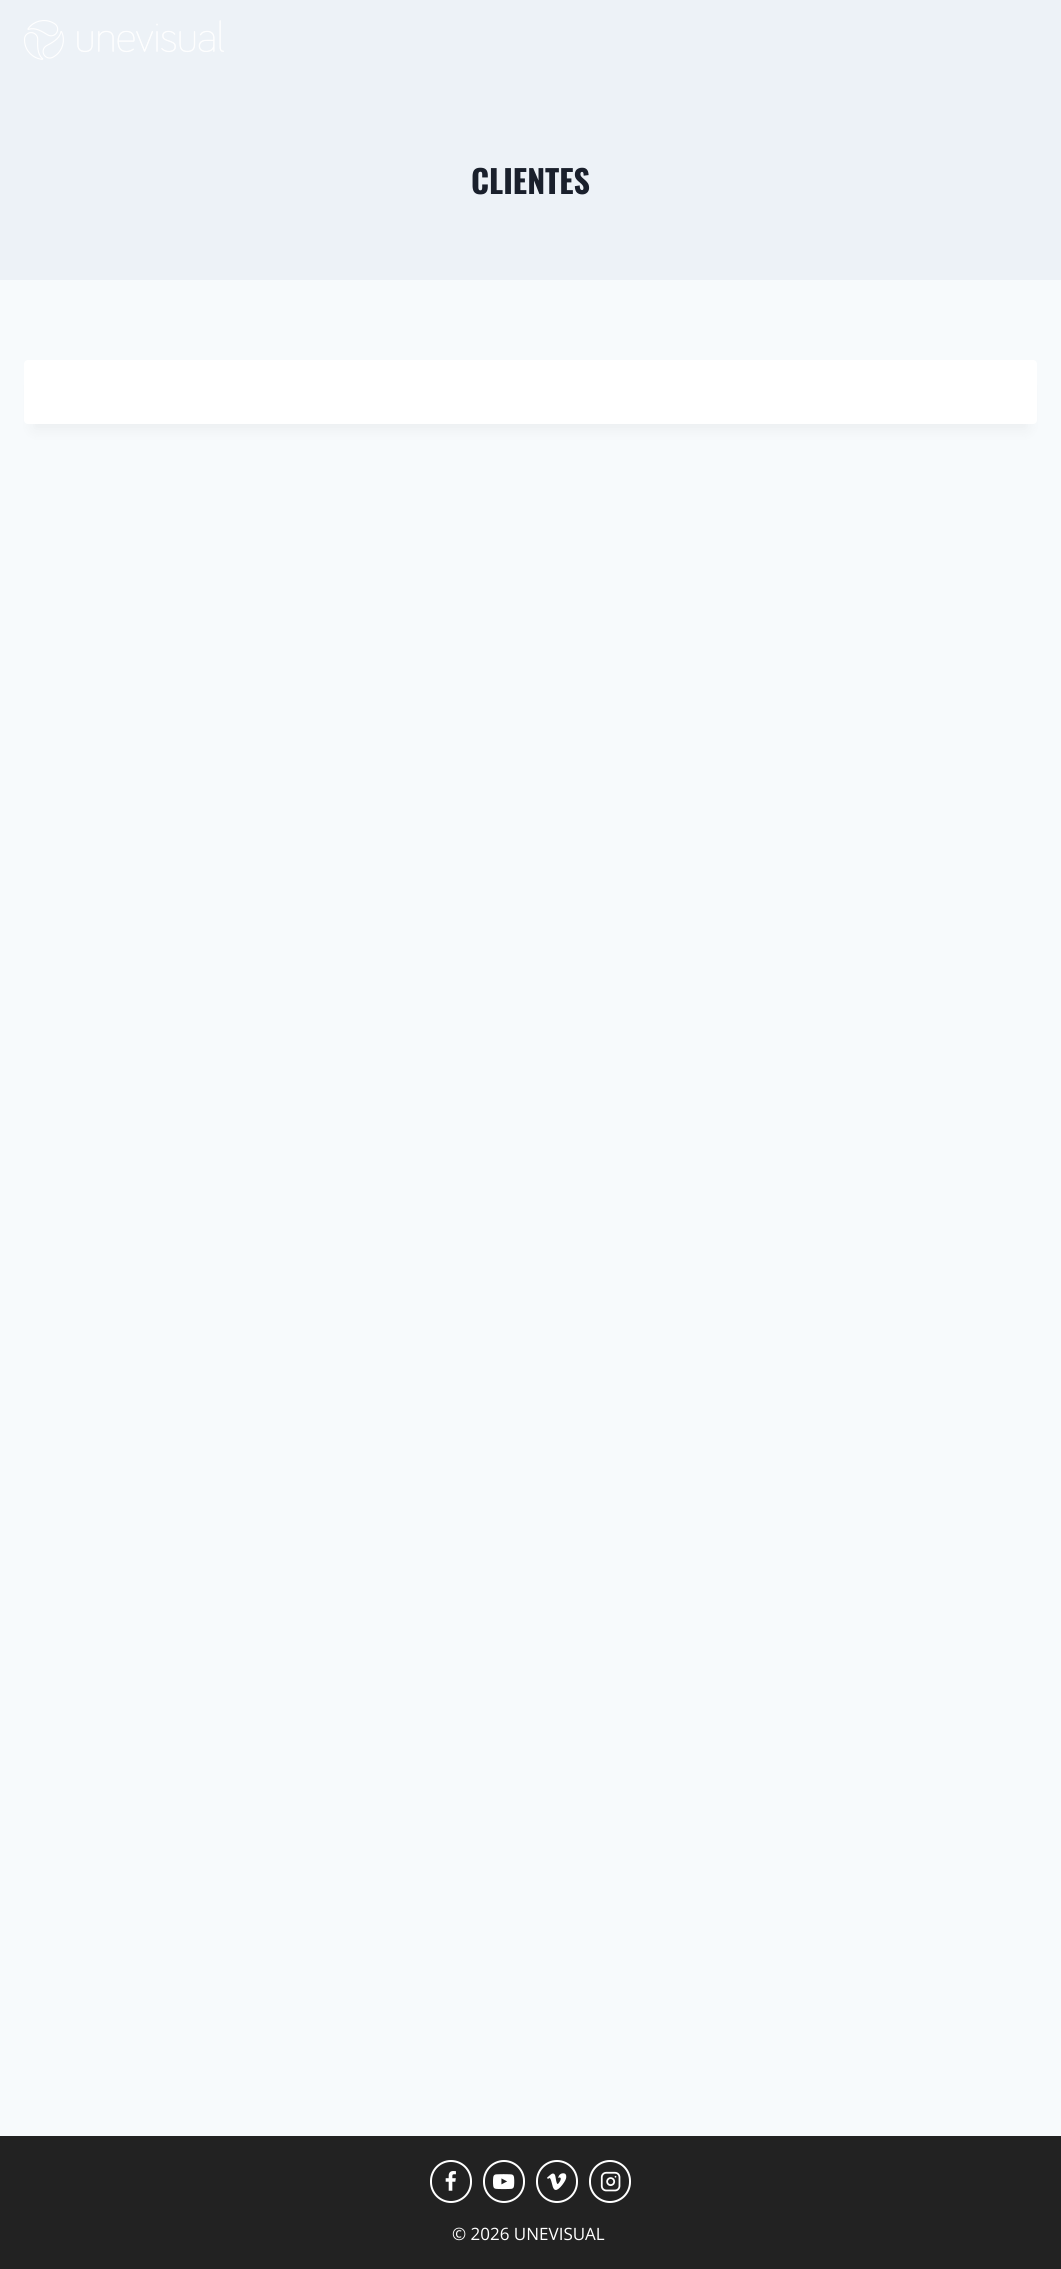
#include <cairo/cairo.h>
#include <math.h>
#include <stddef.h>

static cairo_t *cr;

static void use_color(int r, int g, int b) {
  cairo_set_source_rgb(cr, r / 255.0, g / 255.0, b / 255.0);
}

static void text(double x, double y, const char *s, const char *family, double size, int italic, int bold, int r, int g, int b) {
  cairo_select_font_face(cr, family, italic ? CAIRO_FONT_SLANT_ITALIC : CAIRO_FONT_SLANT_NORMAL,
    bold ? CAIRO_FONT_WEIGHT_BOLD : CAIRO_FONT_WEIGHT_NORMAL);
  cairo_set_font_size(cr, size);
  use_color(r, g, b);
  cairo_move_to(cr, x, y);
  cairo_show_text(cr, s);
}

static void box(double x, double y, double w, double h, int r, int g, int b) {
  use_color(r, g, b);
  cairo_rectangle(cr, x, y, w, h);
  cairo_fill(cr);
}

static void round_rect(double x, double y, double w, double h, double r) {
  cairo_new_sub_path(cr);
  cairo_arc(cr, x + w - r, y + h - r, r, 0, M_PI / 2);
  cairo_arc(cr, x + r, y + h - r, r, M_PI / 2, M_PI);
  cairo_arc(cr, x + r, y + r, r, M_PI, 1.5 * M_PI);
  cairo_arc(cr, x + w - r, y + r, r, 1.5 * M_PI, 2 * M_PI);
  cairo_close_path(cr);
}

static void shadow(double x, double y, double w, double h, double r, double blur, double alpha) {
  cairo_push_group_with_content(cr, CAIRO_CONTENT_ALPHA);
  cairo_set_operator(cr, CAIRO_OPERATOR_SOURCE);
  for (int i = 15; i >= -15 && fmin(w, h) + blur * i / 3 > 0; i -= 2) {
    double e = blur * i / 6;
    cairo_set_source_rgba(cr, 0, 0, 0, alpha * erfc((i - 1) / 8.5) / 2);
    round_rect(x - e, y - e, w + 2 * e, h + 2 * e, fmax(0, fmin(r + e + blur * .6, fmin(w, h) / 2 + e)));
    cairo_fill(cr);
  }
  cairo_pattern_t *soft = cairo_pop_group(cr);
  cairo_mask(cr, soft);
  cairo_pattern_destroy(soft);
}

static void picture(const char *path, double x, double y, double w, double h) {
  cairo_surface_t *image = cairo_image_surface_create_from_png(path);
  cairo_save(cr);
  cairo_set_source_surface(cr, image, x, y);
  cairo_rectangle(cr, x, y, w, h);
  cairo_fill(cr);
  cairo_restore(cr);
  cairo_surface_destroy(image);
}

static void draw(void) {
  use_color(247, 250, 252);
  cairo_paint(cr);
  box(0, 0, 1061, 280, 237, 242, 247);
  picture("img_01.png", 24, 20, 200, 40);
  use_color(0, 0, 0);
  shadow(34, 385, 993, 44, 0, 7.5, 0.05);
  use_color(255, 255, 255);
  round_rect(24, 360, 1013, 64, 4);
  cairo_fill(cr);
  box(0, 2136, 1061, 133, 34, 34, 34);
  round_rect(431, 2161, 40, 41, 20);
  use_color(255, 255, 255);
  cairo_stroke(cr);
  picture("img_02.png", 445, 2171, 11, 20);
  round_rect(484, 2161, 40, 41, 20);
  cairo_stroke(cr);
  picture("img_03.png", 493, 2174, 22, 16);
  round_rect(537, 2161, 40, 41, 20);
  cairo_stroke(cr);
  picture("img_04.png", 547, 2173, 20, 17);
  round_rect(590, 2161, 40, 41, 20);
  cairo_stroke(cr);
  picture("img_05.png", 600, 2171, 21, 21);
  text(471, 194, "CLIENTES", "Oswald", 32, 0, 1, 26, 32, 44);
  text(452, 2240, "© 2026 UNEVISUAL", "Open Sans", 17, 0, 0, 255, 255, 255);
}

int main(void) {
  cairo_surface_t *surface = cairo_image_surface_create(CAIRO_FORMAT_RGB24, 1061, 2269);
  cr = cairo_create(surface);
  cairo_font_options_t *options = cairo_font_options_create();
  cairo_font_options_set_hint_metrics(options, CAIRO_HINT_METRICS_OFF);
  cairo_font_options_set_hint_style(options, CAIRO_HINT_STYLE_NONE);
  cairo_set_font_options(cr, options);
  cairo_set_miter_limit(cr, 4);
  draw();
  cairo_surface_write_to_png(surface, "out.png");
  cairo_font_options_destroy(options);
  cairo_destroy(cr);
  cairo_surface_destroy(surface);
  return 0;
}
